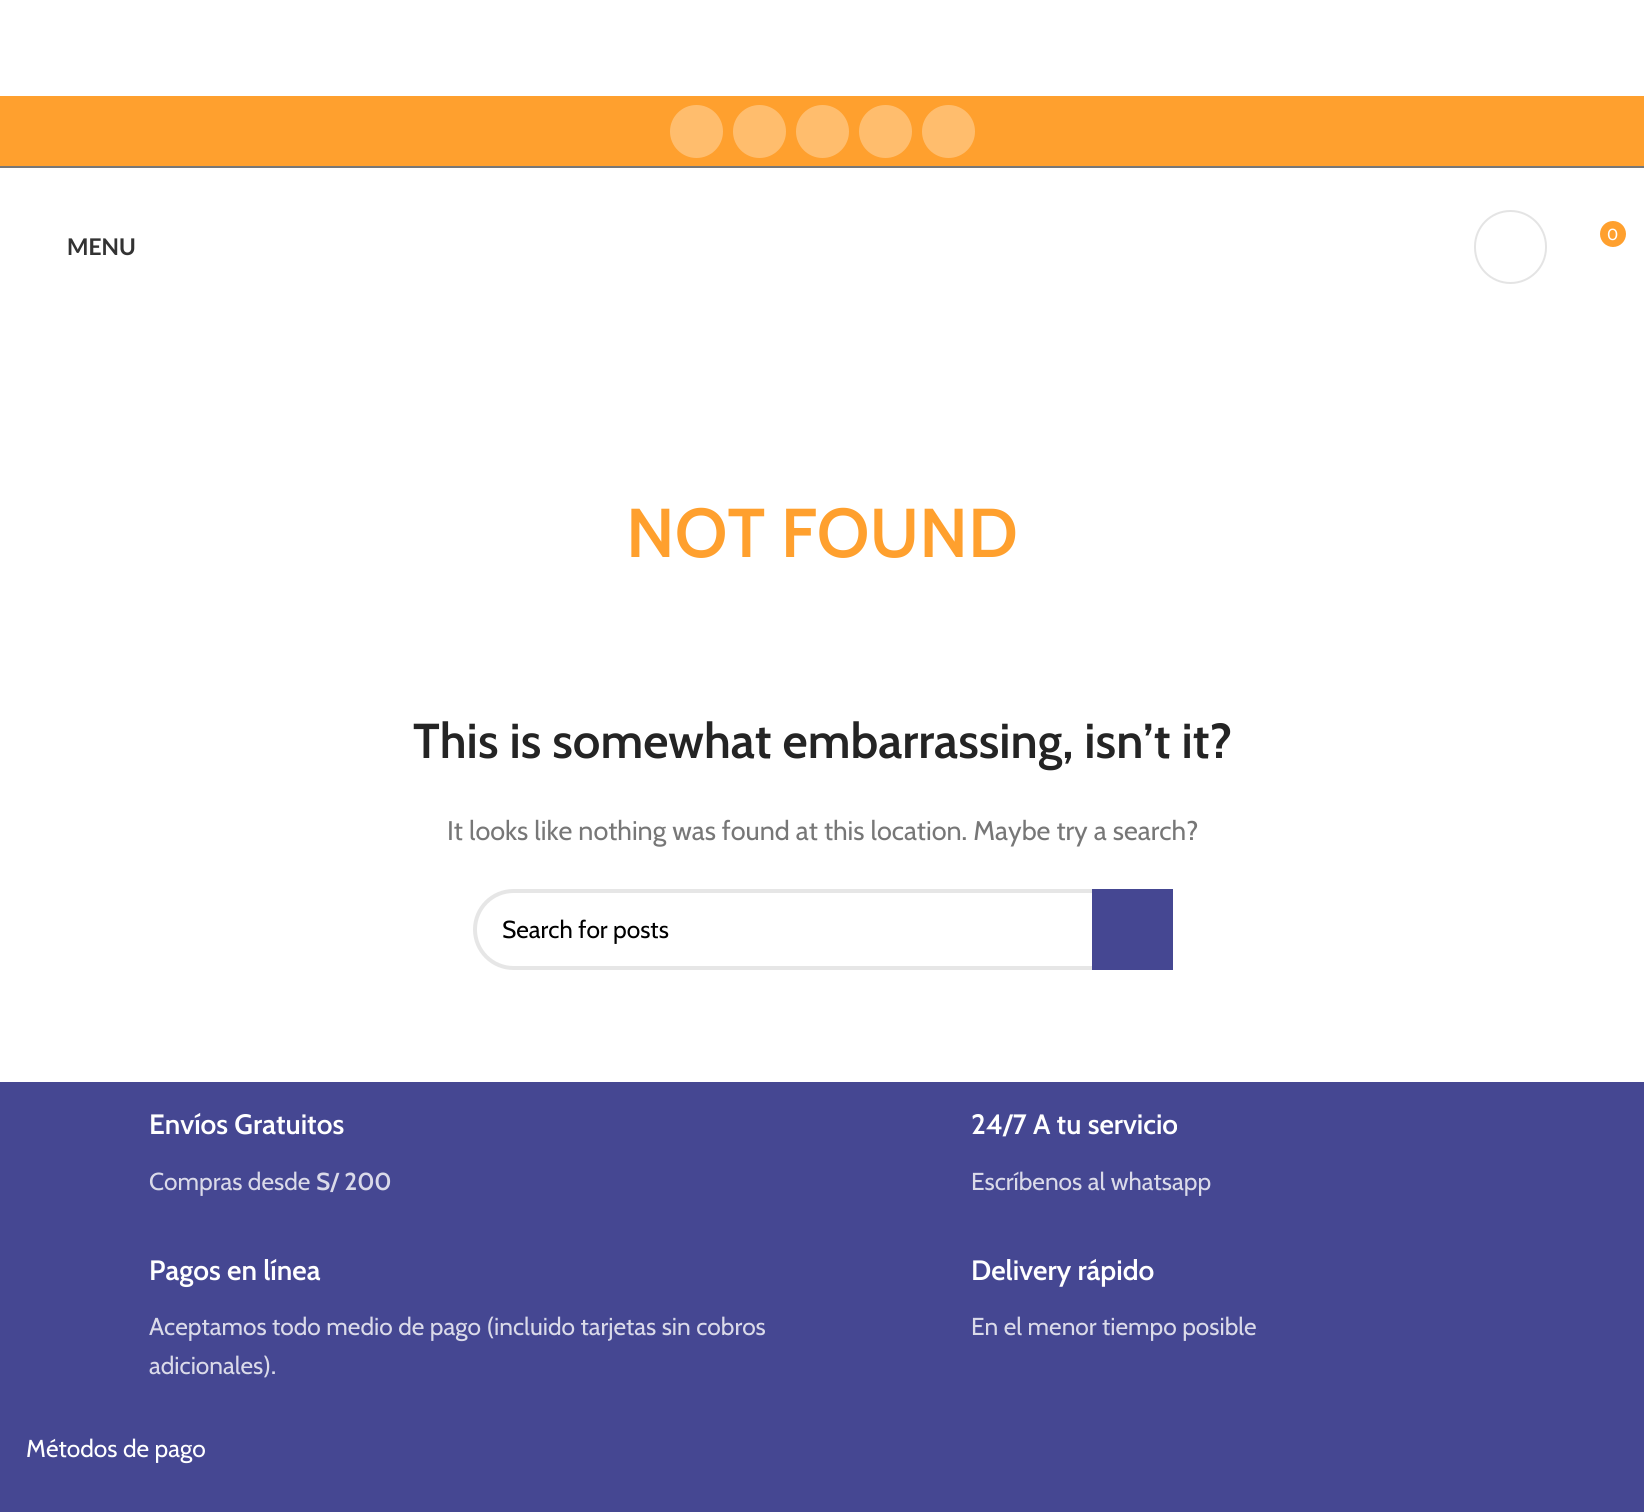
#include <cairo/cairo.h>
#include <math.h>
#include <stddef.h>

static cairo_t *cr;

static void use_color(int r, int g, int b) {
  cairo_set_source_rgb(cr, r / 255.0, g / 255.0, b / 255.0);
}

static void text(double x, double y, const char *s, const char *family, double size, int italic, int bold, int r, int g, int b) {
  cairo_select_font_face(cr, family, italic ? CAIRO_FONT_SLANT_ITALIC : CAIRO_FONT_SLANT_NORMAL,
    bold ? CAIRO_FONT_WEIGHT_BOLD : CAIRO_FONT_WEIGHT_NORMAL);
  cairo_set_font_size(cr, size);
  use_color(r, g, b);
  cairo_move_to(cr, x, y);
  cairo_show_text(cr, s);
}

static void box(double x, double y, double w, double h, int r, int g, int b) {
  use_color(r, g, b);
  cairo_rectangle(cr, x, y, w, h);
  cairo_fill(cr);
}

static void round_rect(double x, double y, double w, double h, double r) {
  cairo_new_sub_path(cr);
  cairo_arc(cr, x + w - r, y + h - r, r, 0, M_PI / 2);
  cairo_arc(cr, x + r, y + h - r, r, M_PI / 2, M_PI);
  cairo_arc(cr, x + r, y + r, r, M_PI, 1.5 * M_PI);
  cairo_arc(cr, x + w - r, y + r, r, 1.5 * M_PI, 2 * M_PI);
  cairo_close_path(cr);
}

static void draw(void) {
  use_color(255, 255, 255);
  cairo_paint(cr);
  box(0, 96, 1644, 70, 255, 160, 46);
  box(0, 166, 1644, 2, 119, 119, 119);
  use_color(255, 189, 109);
  cairo_arc(cr, 696.5, 131.5, 26.5, 0, 2 * M_PI);
  cairo_fill(cr);
  cairo_arc(cr, 759.5, 131.5, 26.5, 0, 2 * M_PI);
  cairo_fill(cr);
  cairo_arc(cr, 822.5, 131.5, 26.5, 0, 2 * M_PI);
  cairo_fill(cr);
  cairo_arc(cr, 885.5, 131.5, 26.5, 0, 2 * M_PI);
  cairo_fill(cr);
  cairo_arc(cr, 948.5, 131.5, 26.5, 0, 2 * M_PI);
  cairo_fill(cr);
  round_rect(1475, 211, 71, 72, 35.5);
  use_color(228, 228, 228);
  cairo_stroke(cr);
  use_color(255, 160, 46);
  cairo_arc(cr, 1613, 234, 13, 0, 2 * M_PI);
  cairo_fill(cr);
  round_rect(475, 891, 696, 77, 38.5);
  use_color(230, 230, 230);
  cairo_set_line_width(cr, 4);
  cairo_stroke(cr);
  box(1092, 889, 81, 81, 69, 71, 146);
  box(0, 1082, 1644, 430, 69, 71, 146);
  text(1607, 240, "0", "Cabin", 16, 0, 0, 255, 255, 255);
  text(67, 255, "MENU", "Lato", 23, 0, 1, 51, 51, 51);
  text(626, 557, "NOT FOUND", "Cabin SemiBold", 69, 0, 0, 255, 160, 46);
  text(413, 758, "This is somewhat embarrassing, isn’t it?", "Cabin SemiBold", 49, 0, 0, 36, 36, 36);
  text(447, 840, "It looks like nothing was found at this location. Maybe try a search?", "Cabin", 26.95, 0, 0, 119, 119, 119);
  text(502, 938, "Search for posts", "Cabin", 24.5, 0, 0, 0, 0, 0);
  text(149, 1134, "Envíos Gratuitos", "Cabin SemiBold", 28, 0, 0, 255, 255, 255);
  text(149, 1190, "Compras desde", "Cabin", 24.5, 0, 0, 218, 218, 233);
  text(316, 1190, "S/ 200", "Cabin SemiBold", 24.5, 0, 0, 218, 218, 233);
  text(971, 1134, "24/7 A tu servicio", "Cabin SemiBold", 28, 0, 0, 255, 255, 255);
  text(971, 1190, "Escríbenos al whatsapp", "Cabin", 24.5, 0, 0, 218, 218, 233);
  text(149, 1280, "Pagos en línea", "Cabin SemiBold", 28, 0, 0, 255, 255, 255);
  text(149, 1335, "Aceptamos todo medio de pago (incluido tarjetas sin cobros", "Cabin", 24.5, 0, 0, 218, 218, 233);
  text(149, 1374, "adicionales).", "Cabin", 24.5, 0, 0, 218, 218, 233);
  text(971, 1280, "Delivery rápido", "Cabin SemiBold", 28, 0, 0, 255, 255, 255);
  text(971, 1335, "En el menor tiempo posible", "Cabin", 24.5, 0, 0, 218, 218, 233);
  text(26, 1457, "Métodos de pago", "Cabin", 24.5, 0, 0, 255, 255, 255);
}

int main(void) {
  cairo_surface_t *surface = cairo_image_surface_create(CAIRO_FORMAT_RGB24, 1644, 1512);
  cr = cairo_create(surface);
  cairo_font_options_t *options = cairo_font_options_create();
  cairo_font_options_set_hint_metrics(options, CAIRO_HINT_METRICS_OFF);
  cairo_font_options_set_hint_style(options, CAIRO_HINT_STYLE_NONE);
  cairo_set_font_options(cr, options);
  cairo_set_miter_limit(cr, 4);
  draw();
  cairo_surface_write_to_png(surface, "out.png");
  cairo_font_options_destroy(options);
  cairo_destroy(cr);
  cairo_surface_destroy(surface);
  return 0;
}
